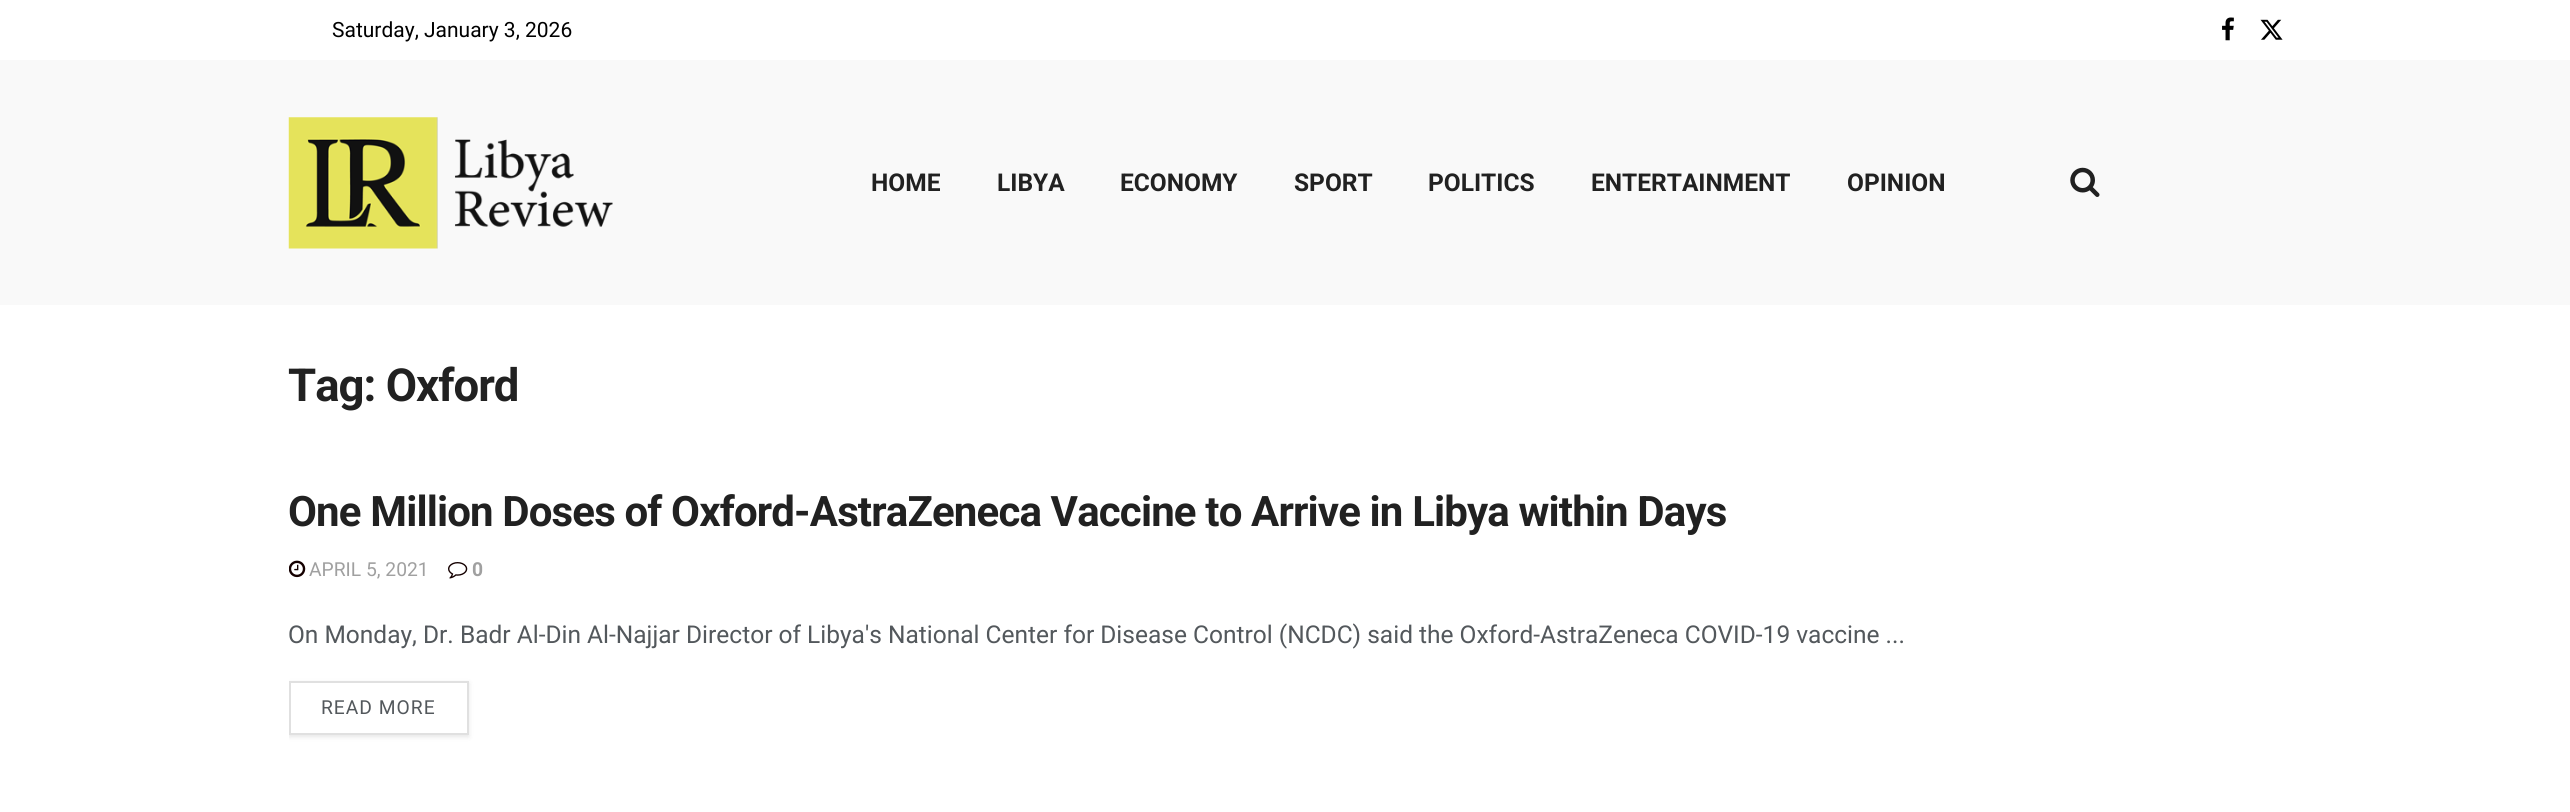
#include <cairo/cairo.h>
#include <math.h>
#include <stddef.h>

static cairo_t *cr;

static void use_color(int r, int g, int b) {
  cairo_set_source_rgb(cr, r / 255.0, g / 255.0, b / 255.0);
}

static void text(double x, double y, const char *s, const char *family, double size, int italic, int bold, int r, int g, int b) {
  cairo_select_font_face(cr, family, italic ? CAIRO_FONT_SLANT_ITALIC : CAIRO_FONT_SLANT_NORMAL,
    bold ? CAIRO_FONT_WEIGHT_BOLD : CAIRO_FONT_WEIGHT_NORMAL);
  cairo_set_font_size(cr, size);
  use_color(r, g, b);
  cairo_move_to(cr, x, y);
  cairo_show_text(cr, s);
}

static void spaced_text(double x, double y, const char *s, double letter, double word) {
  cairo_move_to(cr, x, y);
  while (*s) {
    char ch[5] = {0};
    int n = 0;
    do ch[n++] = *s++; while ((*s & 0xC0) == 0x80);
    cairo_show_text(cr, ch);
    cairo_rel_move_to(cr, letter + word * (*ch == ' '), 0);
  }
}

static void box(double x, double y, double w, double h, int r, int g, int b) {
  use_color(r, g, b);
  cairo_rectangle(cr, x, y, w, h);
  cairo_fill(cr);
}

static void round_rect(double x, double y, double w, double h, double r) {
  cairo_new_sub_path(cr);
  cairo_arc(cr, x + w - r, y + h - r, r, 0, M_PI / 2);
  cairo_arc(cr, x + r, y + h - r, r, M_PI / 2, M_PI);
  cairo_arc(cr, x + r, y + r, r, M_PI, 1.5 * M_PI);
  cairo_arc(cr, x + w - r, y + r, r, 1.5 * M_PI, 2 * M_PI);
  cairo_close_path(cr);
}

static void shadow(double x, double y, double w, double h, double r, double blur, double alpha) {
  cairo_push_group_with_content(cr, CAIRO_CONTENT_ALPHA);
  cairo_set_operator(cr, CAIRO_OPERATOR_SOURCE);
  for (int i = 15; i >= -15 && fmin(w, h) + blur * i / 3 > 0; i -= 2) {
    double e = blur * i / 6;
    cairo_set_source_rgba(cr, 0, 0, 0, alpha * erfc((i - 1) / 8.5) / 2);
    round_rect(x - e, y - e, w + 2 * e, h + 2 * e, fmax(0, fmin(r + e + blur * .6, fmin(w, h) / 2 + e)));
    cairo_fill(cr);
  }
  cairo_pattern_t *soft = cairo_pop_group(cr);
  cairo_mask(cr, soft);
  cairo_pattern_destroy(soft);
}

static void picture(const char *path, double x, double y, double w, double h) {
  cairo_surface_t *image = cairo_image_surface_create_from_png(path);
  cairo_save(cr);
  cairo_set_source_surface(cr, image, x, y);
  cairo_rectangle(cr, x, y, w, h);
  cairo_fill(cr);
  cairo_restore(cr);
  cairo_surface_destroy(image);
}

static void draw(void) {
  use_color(255, 255, 255);
  cairo_paint(cr);
  picture("img_01.png", 2222, 17, 12, 24);
  picture("img_02.png", 2260, 19, 23, 21);
  box(0, 60, 2570, 245, 249, 249, 249);
  picture("img_03.png", 288, 117, 325, 132);
  picture("img_04.png", 2070, 167, 30, 30);
  picture("img_05.png", 289, 560, 17, 18);
  picture("img_06.png", 448, 562, 20, 17);
  cairo_save(cr);
  cairo_rectangle(cr, 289, 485, 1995, 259);
  cairo_clip(cr);
  cairo_set_fill_rule(cr, CAIRO_FILL_RULE_EVEN_ODD);
  cairo_new_path(cr);
  cairo_move_to(cr, 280, 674);
  cairo_line_to(cr, 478, 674);
  cairo_line_to(cr, 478, 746);
  cairo_line_to(cr, 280, 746);
  cairo_close_path(cr);
  cairo_move_to(cr, 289, 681);
  cairo_line_to(cr, 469, 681);
  cairo_line_to(cr, 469, 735);
  cairo_line_to(cr, 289, 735);
  cairo_close_path(cr);
  cairo_clip(cr);
  use_color(0, 0, 0);
  shadow(289, 683, 180, 54, 0, 2.5, 0.1);
  cairo_restore(cr);
  cairo_rectangle(cr, 290, 682, 178, 52);
  use_color(224, 224, 224);
  cairo_stroke(cr);
  text(332, 37, "Saturday, January 3, 2026", "Roboto", 21, 0, 0, 0, 0, 0);
  text(871, 191, "HOME", "Roboto", 24.5, 0, 1, 33, 33, 33);
  text(997, 191, "LIBYA", "Roboto", 24.5, 0, 1, 33, 33, 33);
  text(1120, 191, "ECONOMY", "Roboto", 24.5, 0, 1, 33, 33, 33);
  text(1294, 191, "SPORT", "Roboto", 24.5, 0, 1, 33, 33, 33);
  text(1428, 191, "POLITICS", "Roboto", 24.5, 0, 1, 33, 33, 33);
  text(1591, 191, "ENTERTAINMENT", "Roboto", 24.5, 0, 1, 33, 33, 33);
  text(1847, 191, "OPINION", "Roboto", 24.5, 0, 1, 33, 33, 33);
  cairo_set_font_size(cr, 45.5);
  spaced_text(288, 401, "Tag: Oxford", -1, 0);
  cairo_set_font_size(cr, 42);
  spaced_text(288, 526, "One Million Doses of Oxford-AstraZeneca Vaccine to Arrive in Libya within Days", -0.85, 0);
  text(309, 576, "APRIL 5, 2021", "Roboto", 19.25, 0, 0, 160, 160, 160);
  text(472, 576, "0", "Roboto", 19.25, 0, 1, 160, 160, 160);
  text(288, 643, "On Monday, Dr. Badr Al-Din Al-Najjar Director of Libya's National Center for Disease Control (NCDC) said the Oxford-AstraZeneca COVID-19 vaccine ...", "Roboto", 24.5, 0, 0, 83, 88, 92);
  cairo_set_font_size(cr, 19.25);
  spaced_text(321, 714, "READ MORE", 1, 0);
}

int main(void) {
  cairo_surface_t *surface = cairo_image_surface_create(CAIRO_FORMAT_RGB24, 2570, 812);
  cr = cairo_create(surface);
  cairo_font_options_t *options = cairo_font_options_create();
  cairo_font_options_set_hint_metrics(options, CAIRO_HINT_METRICS_OFF);
  cairo_font_options_set_hint_style(options, CAIRO_HINT_STYLE_NONE);
  cairo_set_font_options(cr, options);
  cairo_set_miter_limit(cr, 4);
  draw();
  cairo_surface_write_to_png(surface, "out.png");
  cairo_font_options_destroy(options);
  cairo_destroy(cr);
  cairo_surface_destroy(surface);
  return 0;
}
